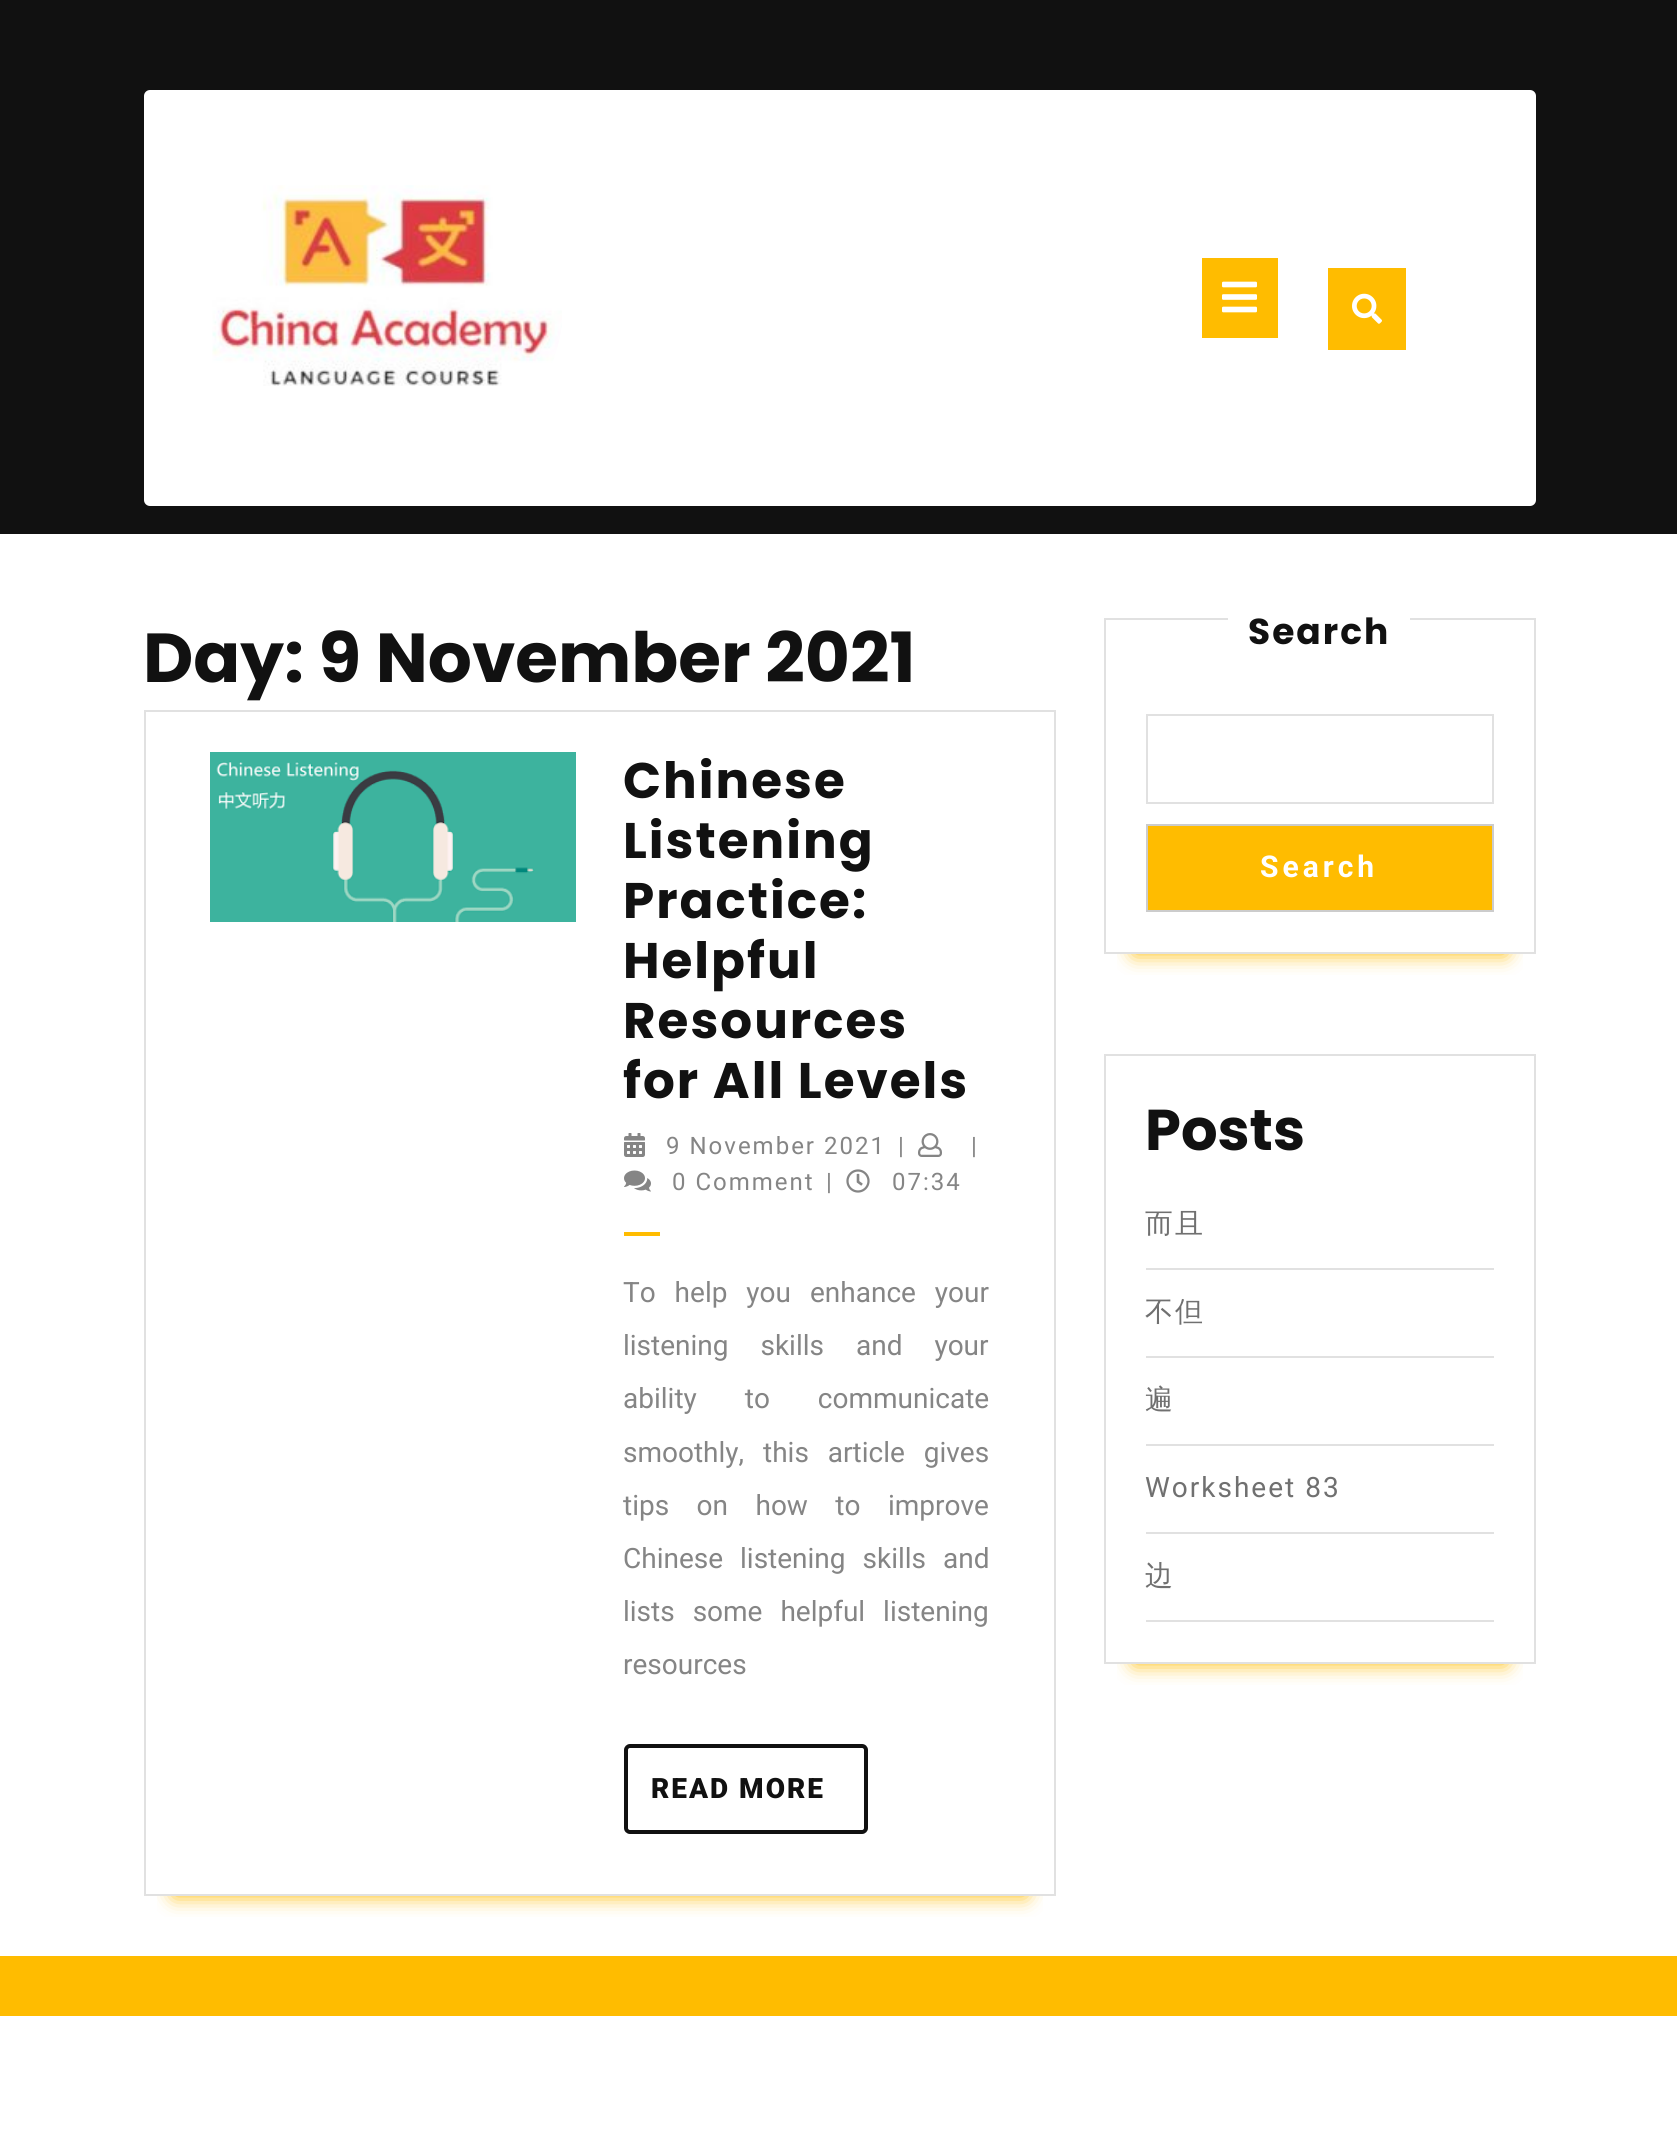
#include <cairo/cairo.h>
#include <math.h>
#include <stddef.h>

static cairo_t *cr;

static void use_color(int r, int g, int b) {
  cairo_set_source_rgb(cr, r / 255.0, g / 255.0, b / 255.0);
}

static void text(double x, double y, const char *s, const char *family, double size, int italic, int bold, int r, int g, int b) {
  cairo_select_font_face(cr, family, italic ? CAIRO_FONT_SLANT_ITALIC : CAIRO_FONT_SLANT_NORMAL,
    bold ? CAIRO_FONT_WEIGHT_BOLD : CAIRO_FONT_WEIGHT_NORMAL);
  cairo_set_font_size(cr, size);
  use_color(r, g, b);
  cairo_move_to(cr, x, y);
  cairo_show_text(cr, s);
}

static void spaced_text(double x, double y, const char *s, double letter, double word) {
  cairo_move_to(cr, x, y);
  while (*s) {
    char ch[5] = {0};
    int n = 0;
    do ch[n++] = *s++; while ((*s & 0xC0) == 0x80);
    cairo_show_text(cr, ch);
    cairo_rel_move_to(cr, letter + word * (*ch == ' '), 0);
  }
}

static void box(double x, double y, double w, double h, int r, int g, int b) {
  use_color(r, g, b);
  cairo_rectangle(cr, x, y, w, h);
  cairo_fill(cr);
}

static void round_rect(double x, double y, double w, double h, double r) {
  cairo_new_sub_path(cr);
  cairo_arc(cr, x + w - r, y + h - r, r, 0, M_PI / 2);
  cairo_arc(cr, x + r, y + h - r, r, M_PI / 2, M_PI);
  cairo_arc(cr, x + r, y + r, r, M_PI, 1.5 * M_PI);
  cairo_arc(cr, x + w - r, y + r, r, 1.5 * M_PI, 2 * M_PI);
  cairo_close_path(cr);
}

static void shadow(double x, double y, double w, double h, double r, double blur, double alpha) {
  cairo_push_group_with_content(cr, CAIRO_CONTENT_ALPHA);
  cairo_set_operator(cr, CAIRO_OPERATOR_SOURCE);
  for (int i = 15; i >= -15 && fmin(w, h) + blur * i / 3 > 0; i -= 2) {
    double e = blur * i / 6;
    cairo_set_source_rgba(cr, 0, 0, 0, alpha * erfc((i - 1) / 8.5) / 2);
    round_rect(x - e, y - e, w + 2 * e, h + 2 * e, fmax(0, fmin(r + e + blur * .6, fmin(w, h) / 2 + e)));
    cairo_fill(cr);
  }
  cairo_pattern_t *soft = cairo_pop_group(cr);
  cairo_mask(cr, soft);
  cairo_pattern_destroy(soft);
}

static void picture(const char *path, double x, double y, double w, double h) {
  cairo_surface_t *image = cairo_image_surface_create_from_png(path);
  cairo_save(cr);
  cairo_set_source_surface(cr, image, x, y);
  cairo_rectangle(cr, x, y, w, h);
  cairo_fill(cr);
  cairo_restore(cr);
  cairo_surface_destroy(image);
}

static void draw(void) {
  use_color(255, 255, 255);
  cairo_paint(cr);
  box(0, 0, 1677, 534, 17, 17, 17);
  use_color(255, 255, 255);
  round_rect(144, 90, 1392, 416, 6);
  cairo_fill(cr);
  picture("img_01.png", 212, 185, 350, 201);
  box(1202, 258, 76, 80, 255, 188, 0);
  picture("img_02.png", 1222, 281, 35, 32);
  box(1328, 268, 78, 82, 255, 188, 0);
  picture("img_03.png", 1352, 293, 30, 31);
  cairo_save(cr);
  cairo_rectangle(cr, 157, 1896, 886, 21);
  cairo_clip(cr);
  use_color(255, 188, 0);
  shadow(174, 770, 852, 1126, 0, 10, 1);
  cairo_restore(cr);
  cairo_rectangle(cr, 145, 711, 910, 1184);
  use_color(225, 225, 225);
  cairo_stroke(cr);
  picture("img_04.png", 210, 752, 366, 170);
  picture("img_05.png", 624, 1133, 21, 24);
  picture("img_06.png", 918, 1133, 24, 24);
  picture("img_07.png", 624, 1170, 27, 22);
  picture("img_08.png", 846, 1169, 24, 24);
  box(624, 1232, 36, 4, 255, 188, 0);
  round_rect(626, 1746, 240, 86, 4);
  use_color(17, 17, 17);
  cairo_set_line_width(cr, 4);
  cairo_stroke(cr);
  cairo_save(cr);
  cairo_rectangle(cr, 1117, 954, 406, 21);
  cairo_clip(cr);
  use_color(255, 188, 0);
  shadow(1134, 678, 372, 276, 0, 10, 1);
  cairo_restore(cr);
  cairo_rectangle(cr, 1105, 619, 430, 334);
  use_color(225, 225, 225);
  cairo_set_line_width(cr, 2);
  cairo_stroke(cr);
  box(1228, 618, 182, 2, 255, 255, 255);
  cairo_rectangle(cr, 1147, 715, 346, 88);
  use_color(225, 225, 225);
  cairo_stroke(cr);
  use_color(255, 188, 0);
  cairo_rectangle(cr, 1147, 825, 346, 86);
  cairo_fill_preserve(cr);
  use_color(204, 204, 204);
  cairo_stroke(cr);
  cairo_save(cr);
  cairo_rectangle(cr, 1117, 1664, 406, 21);
  cairo_clip(cr);
  use_color(255, 188, 0);
  shadow(1134, 1114, 372, 550, 0, 10, 1);
  cairo_restore(cr);
  cairo_rectangle(cr, 1105, 1055, 430, 608);
  use_color(225, 225, 225);
  cairo_stroke(cr);
  box(1146, 1268, 348, 2, 225, 225, 225);
  box(1146, 1356, 348, 2, 225, 225, 225);
  box(1146, 1444, 348, 2, 225, 225, 225);
  box(1146, 1532, 348, 2, 225, 225, 225);
  box(1146, 1620, 348, 2, 225, 225, 225);
  box(0, 1956, 1677, 60, 255, 188, 0);
  text(143, 682, "Day: 9 November 2021", "Poppins", 69.25, 0, 1, 17, 17, 17);
  cairo_set_font_size(cr, 50);
  spaced_text(623, 798, "Chinese", 2, 0);
  spaced_text(623, 858, "Listening", 2, 0);
  spaced_text(623, 918, "Practice:", 2, 0);
  spaced_text(623, 978, "Helpful", 2, 0);
  spaced_text(623, 1038, "Resources", 2, 0);
  spaced_text(623, 1098, "for All Levels", 2, 0);
  cairo_select_font_face(cr, "Roboto", CAIRO_FONT_SLANT_NORMAL, CAIRO_FONT_WEIGHT_NORMAL);
  cairo_set_font_size(cr, 24);
  use_color(133, 133, 133);
  spaced_text(666, 1154, "9 November 2021", 2, 0);
  spaced_text(898, 1154, "|", 2, 0);
  spaced_text(971, 1154, "|", 2, 0);
  spaced_text(672, 1190, "0 Comment", 2, 0);
  spaced_text(826, 1190, "|", 2, 0);
  spaced_text(892, 1190, "07:34", 2, 0);
  cairo_set_font_size(cr, 28);
  spaced_text(623, 1302, "To help you enhance your", 0, 12);
  spaced_text(623, 1355, "listening skills and your", 0, 25);
  spaced_text(623, 1408, "ability to communicate", 0, 41);
  spaced_text(623, 1462, "smoothly, this article gives", 0, 12);
  spaced_text(623, 1515, "tips on how to improve", 0, 20.5);
  spaced_text(623, 1568, "Chinese listening skills and", 0, 10);
  spaced_text(623, 1621, "lists some helpful listening", 0, 11);
  text(623, 1674, "resources", "Roboto", 28, 0, 0, 133, 133, 133);
  cairo_select_font_face(cr, "Roboto Black", CAIRO_FONT_SLANT_NORMAL, CAIRO_FONT_WEIGHT_NORMAL);
  use_color(17, 17, 17);
  spaced_text(651, 1798, "READ MORE", 2, 0);
  cairo_select_font_face(cr, "Poppins", CAIRO_FONT_SLANT_NORMAL, CAIRO_FONT_WEIGHT_BOLD);
  cairo_set_font_size(cr, 36);
  spaced_text(1248, 644, "Search", 2, 0);
  cairo_select_font_face(cr, "Roboto", CAIRO_FONT_SLANT_NORMAL, CAIRO_FONT_WEIGHT_BOLD);
  cairo_set_font_size(cr, 30);
  use_color(255, 255, 255);
  spaced_text(1260, 877, "Search", 4, 0);
  text(1145, 1150, "Posts", "Poppins", 57.5, 0, 1, 17, 17, 17);
  cairo_select_font_face(cr, "WenQuanYi Zen Hei Medium", CAIRO_FONT_SLANT_NORMAL, CAIRO_FONT_WEIGHT_NORMAL);
  cairo_set_font_size(cr, 28);
  use_color(112, 112, 112);
  spaced_text(1145, 1233, "而且", 2, 0);
  spaced_text(1145, 1321, "不但", 2, 0);
  spaced_text(1145, 1409, "遍", 2, 0);
  cairo_select_font_face(cr, "Roboto", CAIRO_FONT_SLANT_NORMAL, CAIRO_FONT_WEIGHT_NORMAL);
  spaced_text(1145, 1497, "Worksheet 83", 2, 0);
  cairo_select_font_face(cr, "WenQuanYi Zen Hei Medium", CAIRO_FONT_SLANT_NORMAL, CAIRO_FONT_WEIGHT_NORMAL);
  spaced_text(1145, 1585, "边", 2, 0);
}

int main(void) {
  cairo_surface_t *surface = cairo_image_surface_create(CAIRO_FORMAT_RGB24, 1677, 2142);
  cr = cairo_create(surface);
  cairo_font_options_t *options = cairo_font_options_create();
  cairo_font_options_set_hint_metrics(options, CAIRO_HINT_METRICS_OFF);
  cairo_font_options_set_hint_style(options, CAIRO_HINT_STYLE_NONE);
  cairo_set_font_options(cr, options);
  cairo_set_miter_limit(cr, 4);
  draw();
  cairo_surface_write_to_png(surface, "out.png");
  cairo_font_options_destroy(options);
  cairo_destroy(cr);
  cairo_surface_destroy(surface);
  return 0;
}
